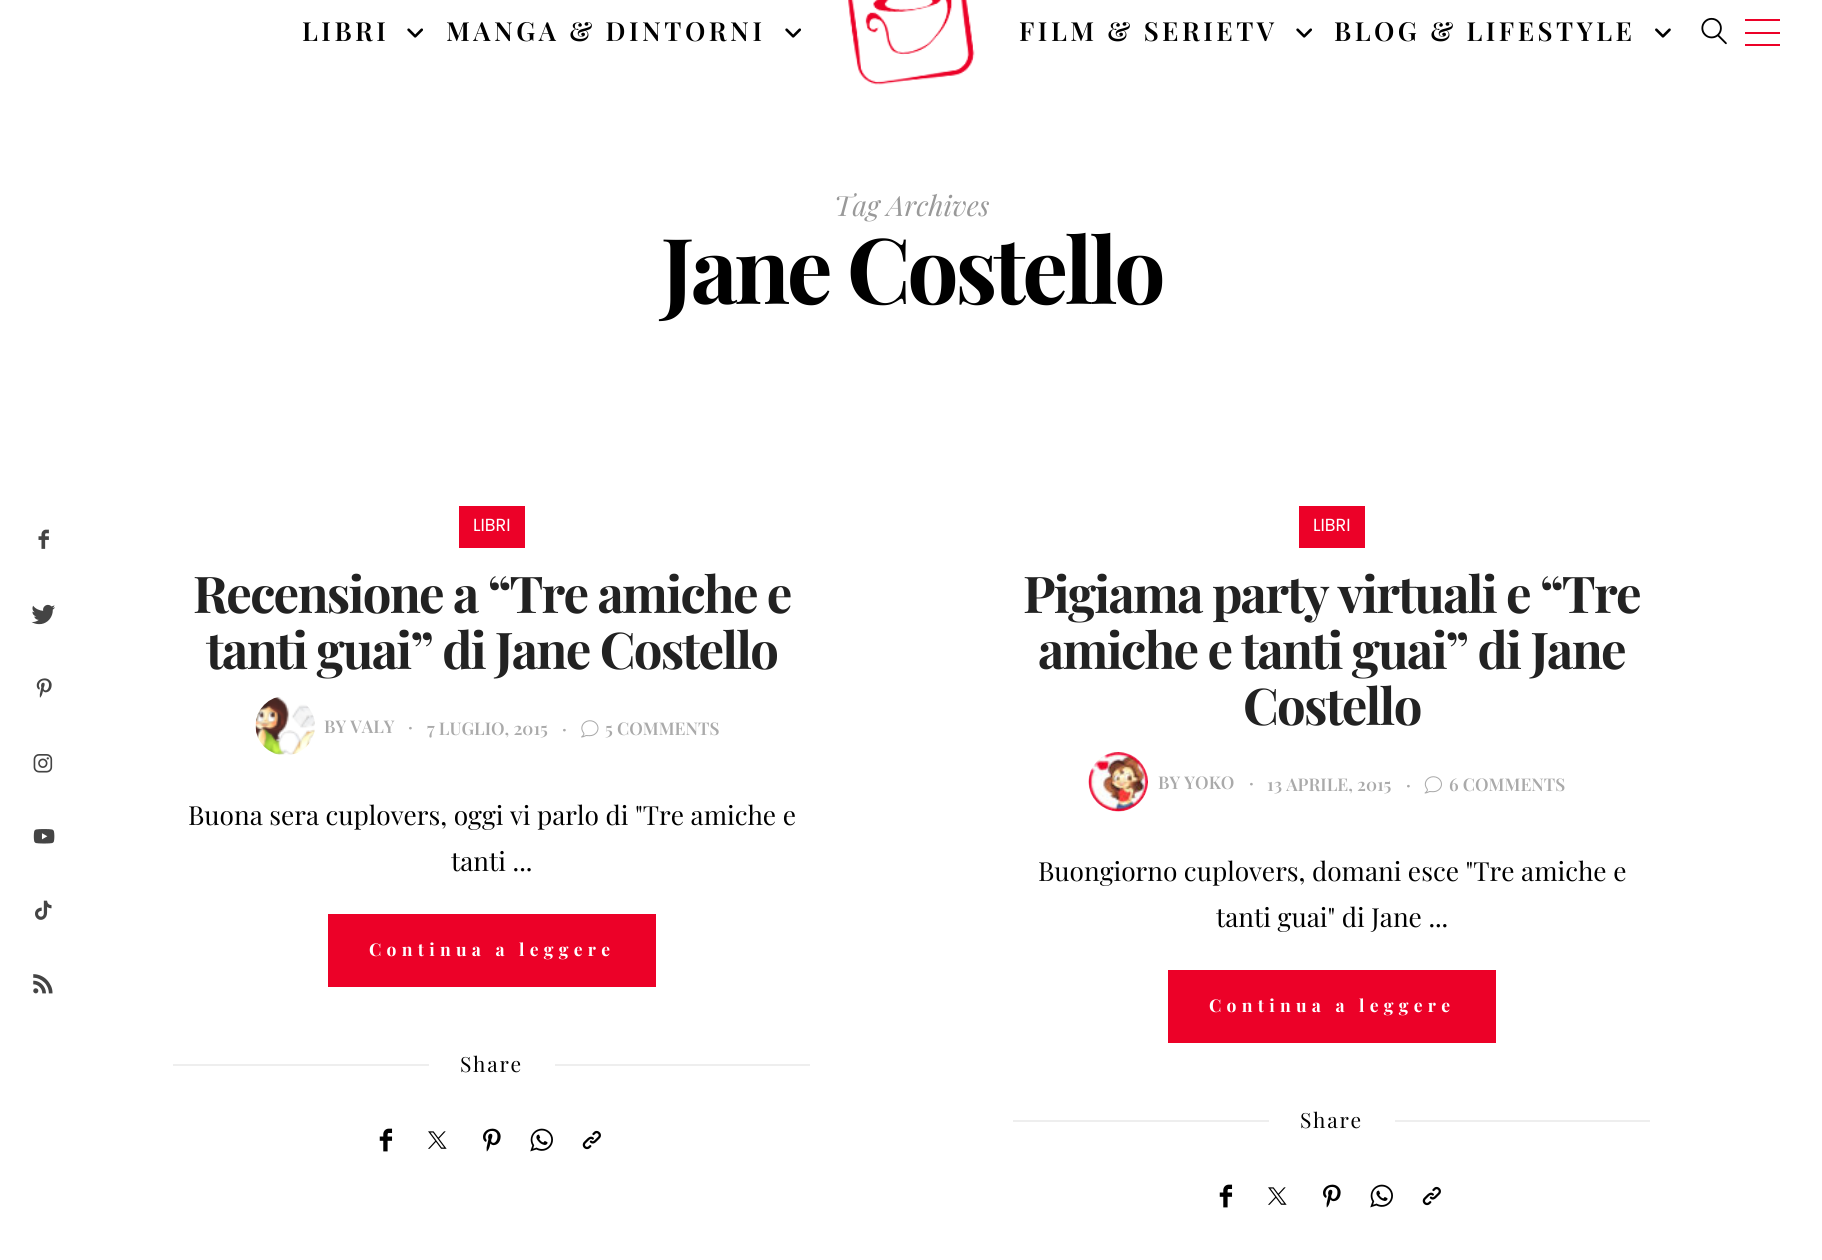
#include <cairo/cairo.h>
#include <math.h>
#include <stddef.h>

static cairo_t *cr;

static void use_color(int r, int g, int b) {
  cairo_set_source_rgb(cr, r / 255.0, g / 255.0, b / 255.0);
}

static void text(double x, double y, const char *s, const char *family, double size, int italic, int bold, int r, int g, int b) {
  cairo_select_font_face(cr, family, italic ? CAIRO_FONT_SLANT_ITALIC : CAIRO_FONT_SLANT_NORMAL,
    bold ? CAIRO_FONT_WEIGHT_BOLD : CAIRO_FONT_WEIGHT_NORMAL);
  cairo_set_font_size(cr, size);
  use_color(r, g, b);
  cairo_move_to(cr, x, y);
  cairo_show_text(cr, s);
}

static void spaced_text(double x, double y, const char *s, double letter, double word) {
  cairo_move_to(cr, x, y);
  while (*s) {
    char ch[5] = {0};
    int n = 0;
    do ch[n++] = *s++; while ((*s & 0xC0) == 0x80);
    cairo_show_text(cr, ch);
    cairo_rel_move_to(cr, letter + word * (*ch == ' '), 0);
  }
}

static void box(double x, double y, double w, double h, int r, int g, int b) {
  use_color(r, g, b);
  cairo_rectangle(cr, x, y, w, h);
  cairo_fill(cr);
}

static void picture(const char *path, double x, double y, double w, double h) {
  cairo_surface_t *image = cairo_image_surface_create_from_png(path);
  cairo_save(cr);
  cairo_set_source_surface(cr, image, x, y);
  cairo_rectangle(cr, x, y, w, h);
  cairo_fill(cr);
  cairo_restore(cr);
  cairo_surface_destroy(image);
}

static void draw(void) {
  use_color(255, 255, 255);
  cairo_paint(cr);
  picture("img_01.png", 38, 529, 11, 20);
  picture("img_02.png", 31, 604, 24, 21);
  picture("img_03.png", 36, 678, 16, 20);
  picture("img_04.png", 33, 754, 20, 19);
  picture("img_05.png", 33, 829, 22, 15);
  picture("img_06.png", 35, 900, 17, 20);
  picture("img_07.png", 33, 974, 20, 20);
  picture("img_08.png", 407, 28, 16, 10);
  picture("img_08.png", 785, 28, 16, 10);
  picture("img_09.png", 848, 0, 127, 85);
  picture("img_08.png", 1296, 28, 16, 10);
  picture("img_10.png", 1655, 28, 16, 10);
  picture("img_11.png", 1701, 17, 26, 28);
  box(1745, 32, 35, 2, 236, 1, 40);
  box(1745, 19, 35, 2, 236, 1, 40);
  box(1745, 44, 35, 2, 236, 1, 40);
  box(459, 506, 66, 42, 236, 1, 40);
  picture("img_12.png", 255, 697, 60, 58);
  picture("img_13.png", 581, 720, 18, 18);
  box(328, 914, 328, 73, 236, 1, 40);
  box(173, 1064, 256, 2, 238, 238, 238);
  box(555, 1064, 255, 2, 238, 238, 238);
  picture("img_14.png", 379, 1128, 14, 24);
  picture("img_15.png", 428, 1131, 19, 18);
  picture("img_16.png", 483, 1128, 18, 24);
  picture("img_17.png", 530, 1128, 23, 24);
  picture("img_18.png", 582, 1130, 19, 20);
  box(1299, 506, 66, 42, 236, 1, 40);
  picture("img_19.png", 1088, 752, 60, 60);
  picture("img_20.png", 1424, 776, 18, 18);
  box(1168, 970, 328, 73, 236, 1, 40);
  box(1013, 1120, 256, 2, 238, 238, 238);
  box(1395, 1120, 255, 2, 238, 238, 238);
  picture("img_14.png", 1219, 1184, 14, 24);
  picture("img_15.png", 1268, 1187, 19, 18);
  picture("img_16.png", 1323, 1184, 18, 24);
  picture("img_17.png", 1370, 1184, 23, 24);
  picture("img_18.png", 1422, 1186, 19, 20);
  cairo_select_font_face(cr, "Playfair Display SemiBold", CAIRO_FONT_SLANT_NORMAL, CAIRO_FONT_WEIGHT_NORMAL);
  cairo_set_font_size(cr, 26.25);
  use_color(0, 0, 0);
  spaced_text(302, 41, "LIBRI", 3.5, 0);
  spaced_text(446, 41, "MANGA & DINTORNI", 3.5, 0);
  spaced_text(1019, 41, "FILM & SERIETV", 3.5, 0);
  spaced_text(1334, 41, "BLOG & LIFESTYLE", 3.5, 0);
  text(834, 216, "Tag Archives", "Playfair Display", 28, 1, 0, 153, 153, 153);
  cairo_select_font_face(cr, "Playfair Display", CAIRO_FONT_SLANT_NORMAL, CAIRO_FONT_WEIGHT_BOLD);
  cairo_set_font_size(cr, 91);
  use_color(0, 0, 0);
  spaced_text(661, 304, "Jane Costello", -3.5, 0);
  text(473, 531, "LIBRI", "Poppins", 17.5, 0, 0, 255, 255, 255);
  cairo_select_font_face(cr, "Playfair Display", CAIRO_FONT_SLANT_NORMAL, CAIRO_FONT_WEIGHT_BOLD);
  cairo_set_font_size(cr, 50.75);
  use_color(34, 34, 34);
  spaced_text(193, 613, "Recensione a “Tre amiche e", -1.75, 0);
  spaced_text(206, 669, "tanti guai” di Jane Costello", -1.75, 0);
  text(324, 733, "BY VALY", "Playfair Display SemiBold", 17.5, 0, 0, 170, 170, 170);
  text(408, 733, "·", "Playfair Display SemiBold", 17.5, 0, 0, 170, 170, 170);
  text(427, 735, "7 LUGLIO, 2015", "Playfair Display SemiBold", 17.5, 0, 0, 170, 170, 170);
  text(562, 735, "·", "Playfair Display SemiBold", 17.5, 0, 0, 170, 170, 170);
  text(605, 735, "5 COMMENTS", "Playfair Display SemiBold", 17.5, 0, 0, 170, 170, 170);
  text(188, 825, "Buona sera cuplovers, oggi vi parlo di \"Tre amiche e", "Playfair Display", 26.25, 0, 0, 0, 0, 0);
  text(451, 871, "tanti ...", "Playfair Display", 26.25, 0, 0, 0, 0, 0);
  cairo_select_font_face(cr, "Playfair Display", CAIRO_FONT_SLANT_NORMAL, CAIRO_FONT_WEIGHT_BOLD);
  cairo_set_font_size(cr, 17.5);
  use_color(255, 255, 255);
  spaced_text(369, 956, "Continua a leggere", 5.25, 0);
  cairo_select_font_face(cr, "Playfair Display", CAIRO_FONT_SLANT_NORMAL, CAIRO_FONT_WEIGHT_NORMAL);
  cairo_set_font_size(cr, 21);
  use_color(0, 0, 0);
  spaced_text(460, 1072, "Share", 1.75, 0);
  text(1313, 531, "LIBRI", "Poppins", 17.5, 0, 0, 255, 255, 255);
  cairo_select_font_face(cr, "Playfair Display", CAIRO_FONT_SLANT_NORMAL, CAIRO_FONT_WEIGHT_BOLD);
  cairo_set_font_size(cr, 50.75);
  use_color(34, 34, 34);
  spaced_text(1023, 613, "Pigiama party virtuali e “Tre", -1.75, 0);
  spaced_text(1038, 669, "amiche e tanti guai” di Jane", -1.75, 0);
  spaced_text(1243, 725, "Costello", -1.75, 0);
  text(1158, 789, "BY YOKO", "Playfair Display SemiBold", 17.5, 0, 0, 170, 170, 170);
  text(1249, 789, "·", "Playfair Display SemiBold", 17.5, 0, 0, 170, 170, 170);
  text(1267, 791, "13 APRILE, 2015", "Playfair Display SemiBold", 17.5, 0, 0, 170, 170, 170);
  text(1406, 791, "·", "Playfair Display SemiBold", 17.5, 0, 0, 170, 170, 170);
  text(1449, 791, "6 COMMENTS", "Playfair Display SemiBold", 17.5, 0, 0, 170, 170, 170);
  text(1038, 881, "Buongiorno cuplovers, domani esce \"Tre amiche e", "Playfair Display", 26.25, 0, 0, 0, 0, 0);
  text(1216, 927, "tanti guai\" di Jane ...", "Playfair Display", 26.25, 0, 0, 0, 0, 0);
  cairo_select_font_face(cr, "Playfair Display", CAIRO_FONT_SLANT_NORMAL, CAIRO_FONT_WEIGHT_BOLD);
  cairo_set_font_size(cr, 17.5);
  use_color(255, 255, 255);
  spaced_text(1209, 1012, "Continua a leggere", 5.25, 0);
  cairo_select_font_face(cr, "Playfair Display", CAIRO_FONT_SLANT_NORMAL, CAIRO_FONT_WEIGHT_NORMAL);
  cairo_set_font_size(cr, 21);
  use_color(0, 0, 0);
  spaced_text(1300, 1128, "Share", 1.75, 0);
}

int main(void) {
  cairo_surface_t *surface = cairo_image_surface_create(CAIRO_FORMAT_RGB24, 1822, 1260);
  cr = cairo_create(surface);
  cairo_font_options_t *options = cairo_font_options_create();
  cairo_font_options_set_hint_metrics(options, CAIRO_HINT_METRICS_OFF);
  cairo_font_options_set_hint_style(options, CAIRO_HINT_STYLE_NONE);
  cairo_set_font_options(cr, options);
  cairo_set_miter_limit(cr, 4);
  draw();
  cairo_surface_write_to_png(surface, "out.png");
  cairo_font_options_destroy(options);
  cairo_destroy(cr);
  cairo_surface_destroy(surface);
  return 0;
}
